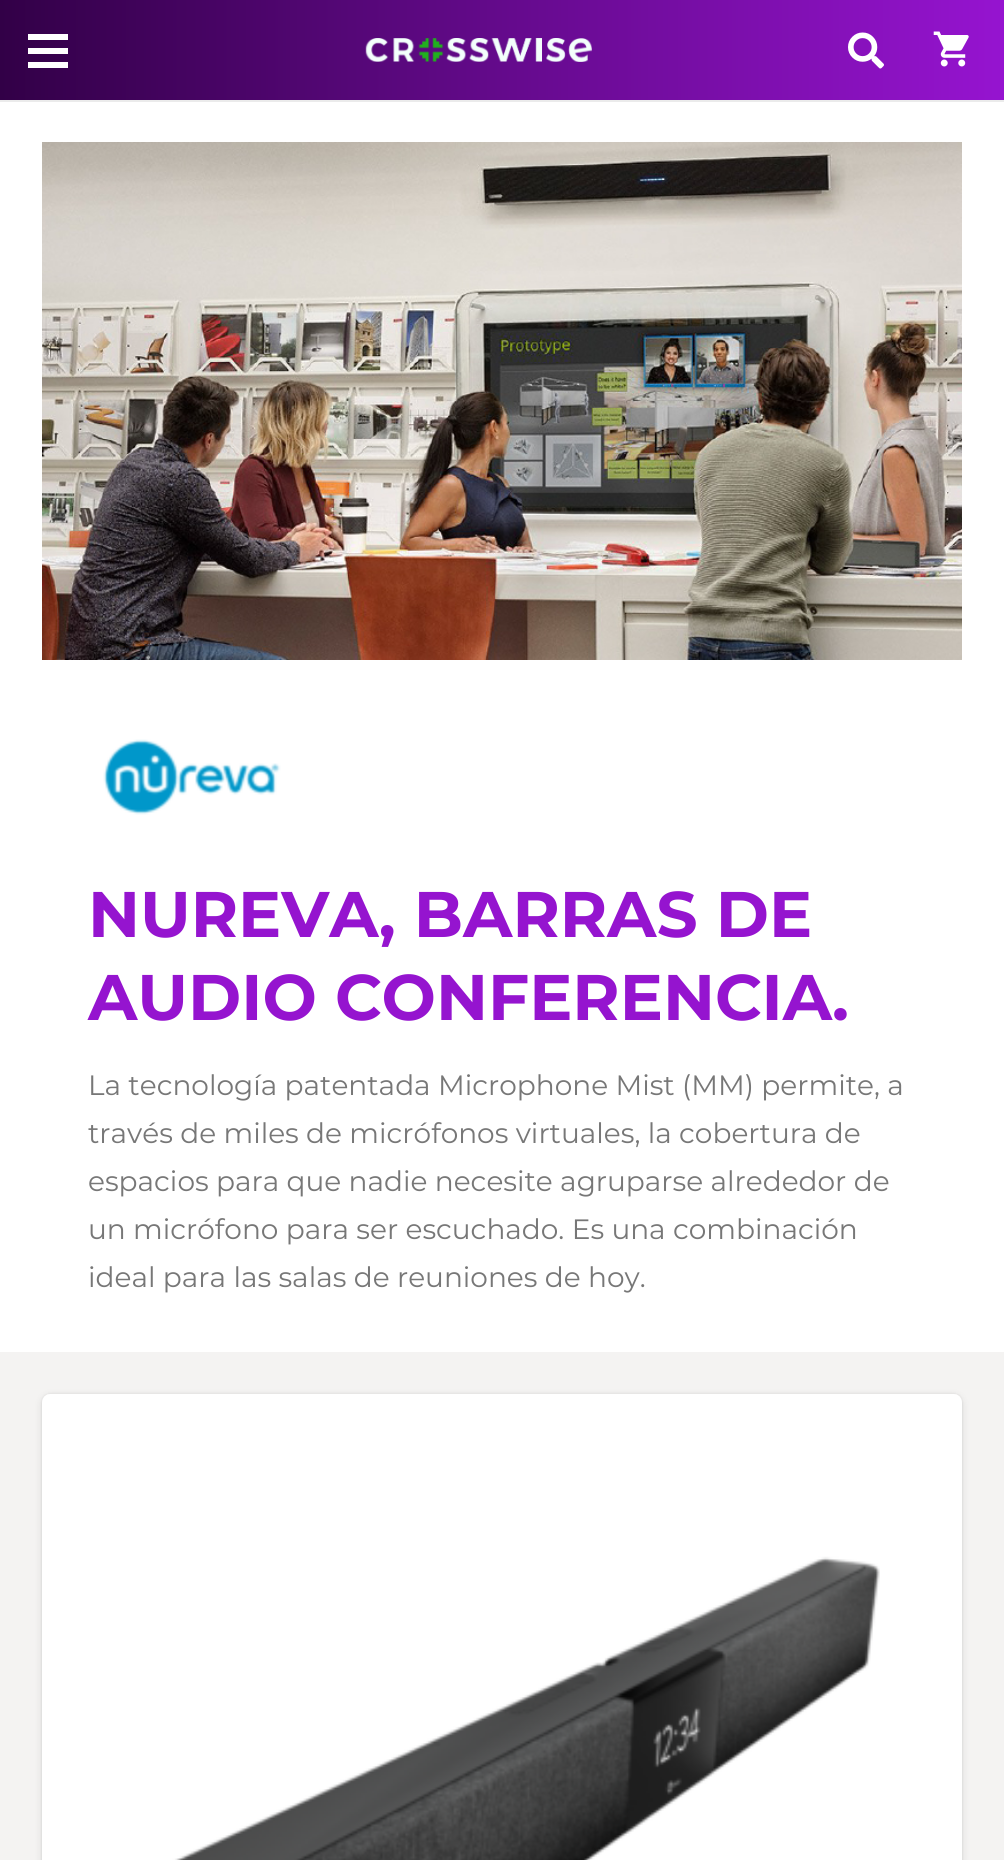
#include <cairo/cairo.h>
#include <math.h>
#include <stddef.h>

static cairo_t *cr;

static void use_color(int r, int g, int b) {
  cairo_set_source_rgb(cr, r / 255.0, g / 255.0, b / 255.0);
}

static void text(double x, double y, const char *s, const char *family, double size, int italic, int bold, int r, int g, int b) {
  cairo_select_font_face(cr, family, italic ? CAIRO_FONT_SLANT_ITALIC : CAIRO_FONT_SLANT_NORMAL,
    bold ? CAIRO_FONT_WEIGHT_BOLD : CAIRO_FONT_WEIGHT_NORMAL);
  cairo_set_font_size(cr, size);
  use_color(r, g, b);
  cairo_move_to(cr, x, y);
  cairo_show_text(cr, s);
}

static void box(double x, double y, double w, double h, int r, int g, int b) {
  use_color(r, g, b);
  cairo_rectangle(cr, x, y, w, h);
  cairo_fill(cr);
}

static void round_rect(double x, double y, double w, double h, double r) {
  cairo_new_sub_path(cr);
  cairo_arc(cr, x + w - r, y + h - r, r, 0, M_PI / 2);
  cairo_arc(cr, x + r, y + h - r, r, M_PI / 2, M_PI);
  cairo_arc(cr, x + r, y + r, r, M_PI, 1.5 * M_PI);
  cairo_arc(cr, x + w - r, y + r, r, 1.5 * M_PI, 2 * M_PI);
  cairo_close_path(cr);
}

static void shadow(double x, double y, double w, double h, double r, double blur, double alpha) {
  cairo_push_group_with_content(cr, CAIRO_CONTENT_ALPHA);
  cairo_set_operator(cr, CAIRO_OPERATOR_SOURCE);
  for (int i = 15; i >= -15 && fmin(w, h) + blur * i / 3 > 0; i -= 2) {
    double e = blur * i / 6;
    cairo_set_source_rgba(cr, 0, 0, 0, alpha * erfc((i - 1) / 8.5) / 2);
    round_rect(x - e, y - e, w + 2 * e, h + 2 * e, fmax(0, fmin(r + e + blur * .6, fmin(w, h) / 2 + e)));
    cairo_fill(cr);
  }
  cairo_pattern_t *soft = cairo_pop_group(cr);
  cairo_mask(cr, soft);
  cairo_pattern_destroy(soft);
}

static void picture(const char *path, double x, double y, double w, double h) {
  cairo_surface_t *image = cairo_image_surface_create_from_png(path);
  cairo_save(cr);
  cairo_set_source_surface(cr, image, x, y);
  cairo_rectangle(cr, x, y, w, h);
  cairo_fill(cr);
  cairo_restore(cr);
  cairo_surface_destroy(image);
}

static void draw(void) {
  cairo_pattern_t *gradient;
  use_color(244, 243, 242);
  cairo_paint(cr);
  box(0, 100, 1004, 2, 235, 235, 235);
  gradient = cairo_pattern_create_linear(0, 50, 1004, 50);
  cairo_pattern_add_color_stop_rgba(gradient, 0, 0.196, 0, 0.278, 1);
  cairo_pattern_add_color_stop_rgba(gradient, 1, 0.588, 0.078, 0.816, 1);
  cairo_set_source(cr, gradient);
  cairo_pattern_destroy(gradient);
  cairo_rectangle(cr, 0, 0, 1004, 100);
  cairo_fill(cr);
  box(28, 48, 40, 6, 255, 255, 255);
  box(28, 34, 40, 6, 255, 255, 255);
  box(28, 62, 40, 6, 255, 255, 255);
  picture("img_01.png", 365, 38, 227, 24);
  picture("img_02.png", 848, 32, 36, 37);
  picture("img_03.png", 933, 31, 36, 36);
  box(0, 102, 1004, 1250, 255, 255, 255);
  picture("img_04.png", 42, 142, 920, 518);
  picture("img_05.png", 103, 739, 178, 76);
  use_color(0, 0, 0);
  shadow(42, 1396, 920, 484, 8, 4, 0.1);
  shadow(42, 1394, 920, 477, 8, 1, 0.1);
  use_color(244, 243, 242);
  round_rect(42, 1394, 920, 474, 8);
  cairo_fill(cr);
  picture("img_06.png", 42, 1394, 920, 466);
  text(88, 937, "NUREVA, BARRAS DE", "Montserrat", 64.4, 0, 1, 149, 20, 207);
  text(88, 1020, "AUDIO CONFERENCIA.", "Montserrat", 64.4, 0, 1, 149, 20, 207);
  text(88, 1095, "La tecnología patentada Microphone Mist (MM) permite, a", "Montserrat", 28, 0, 0, 119, 119, 119);
  text(88, 1143, "través de miles de micrófonos virtuales, la cobertura de", "Montserrat", 28, 0, 0, 119, 119, 119);
  text(88, 1191, "espacios para que nadie necesite agruparse alrededor de", "Montserrat", 28, 0, 0, 119, 119, 119);
  text(88, 1239, "un micrófono para ser escuchado. Es una combinación", "Montserrat", 28, 0, 0, 119, 119, 119);
  text(88, 1287, "ideal para las salas de reuniones de hoy.", "Montserrat", 28, 0, 0, 119, 119, 119);
}

int main(void) {
  cairo_surface_t *surface = cairo_image_surface_create(CAIRO_FORMAT_RGB24, 1004, 1860);
  cr = cairo_create(surface);
  cairo_font_options_t *options = cairo_font_options_create();
  cairo_font_options_set_hint_metrics(options, CAIRO_HINT_METRICS_OFF);
  cairo_font_options_set_hint_style(options, CAIRO_HINT_STYLE_NONE);
  cairo_set_font_options(cr, options);
  cairo_set_miter_limit(cr, 4);
  draw();
  cairo_surface_write_to_png(surface, "out.png");
  cairo_font_options_destroy(options);
  cairo_destroy(cr);
  cairo_surface_destroy(surface);
  return 0;
}
